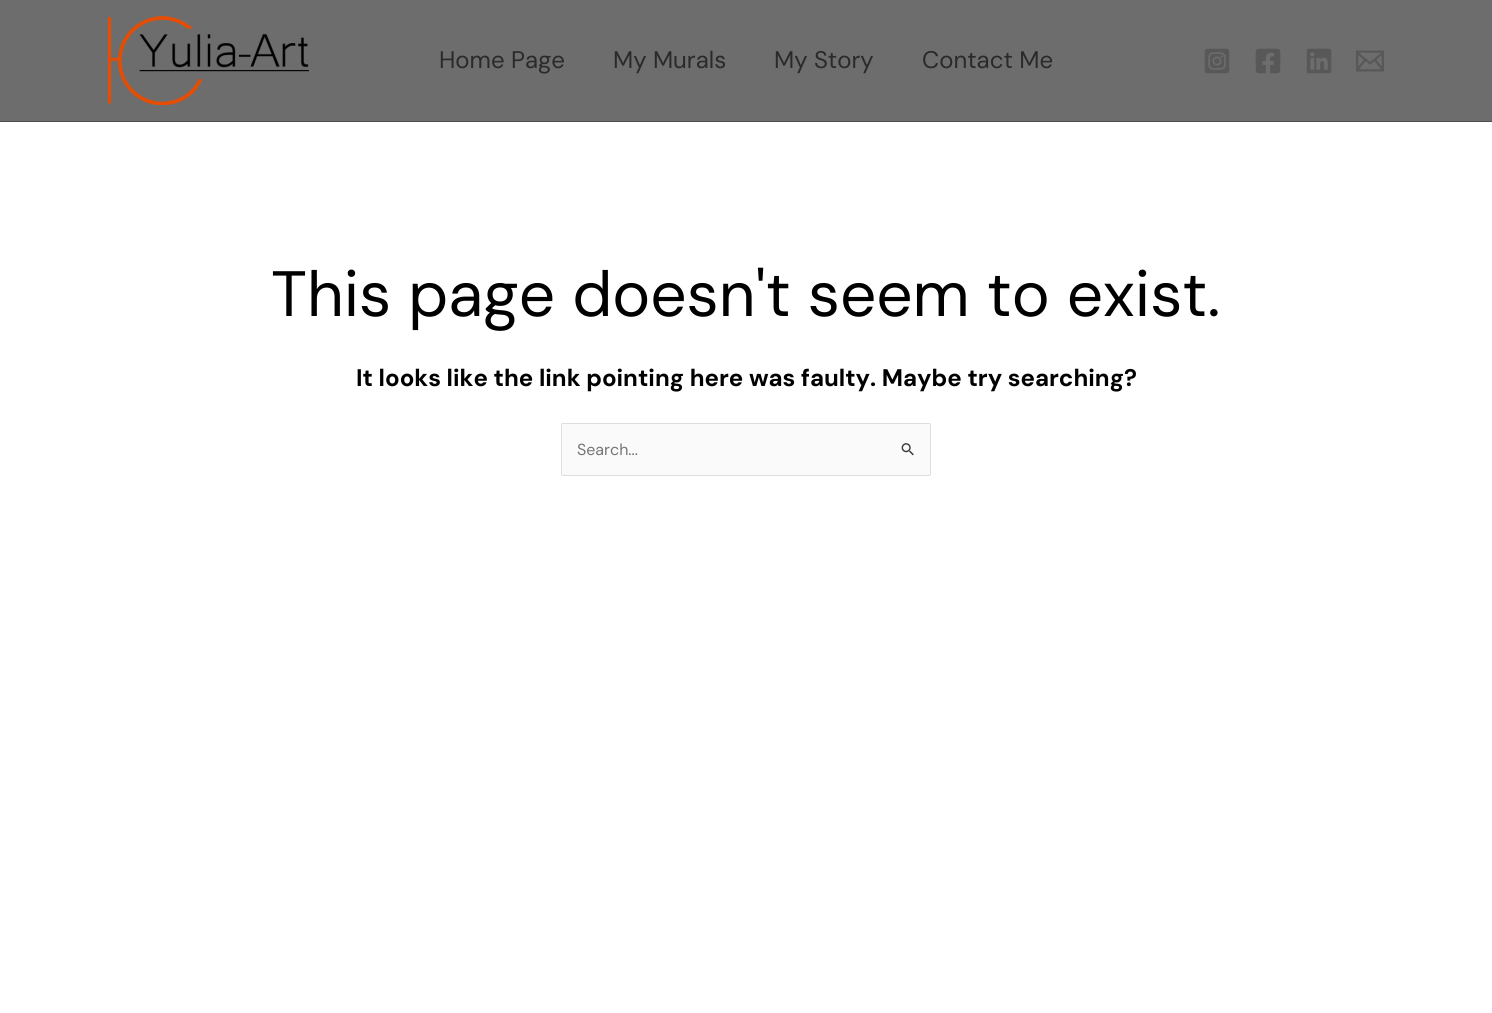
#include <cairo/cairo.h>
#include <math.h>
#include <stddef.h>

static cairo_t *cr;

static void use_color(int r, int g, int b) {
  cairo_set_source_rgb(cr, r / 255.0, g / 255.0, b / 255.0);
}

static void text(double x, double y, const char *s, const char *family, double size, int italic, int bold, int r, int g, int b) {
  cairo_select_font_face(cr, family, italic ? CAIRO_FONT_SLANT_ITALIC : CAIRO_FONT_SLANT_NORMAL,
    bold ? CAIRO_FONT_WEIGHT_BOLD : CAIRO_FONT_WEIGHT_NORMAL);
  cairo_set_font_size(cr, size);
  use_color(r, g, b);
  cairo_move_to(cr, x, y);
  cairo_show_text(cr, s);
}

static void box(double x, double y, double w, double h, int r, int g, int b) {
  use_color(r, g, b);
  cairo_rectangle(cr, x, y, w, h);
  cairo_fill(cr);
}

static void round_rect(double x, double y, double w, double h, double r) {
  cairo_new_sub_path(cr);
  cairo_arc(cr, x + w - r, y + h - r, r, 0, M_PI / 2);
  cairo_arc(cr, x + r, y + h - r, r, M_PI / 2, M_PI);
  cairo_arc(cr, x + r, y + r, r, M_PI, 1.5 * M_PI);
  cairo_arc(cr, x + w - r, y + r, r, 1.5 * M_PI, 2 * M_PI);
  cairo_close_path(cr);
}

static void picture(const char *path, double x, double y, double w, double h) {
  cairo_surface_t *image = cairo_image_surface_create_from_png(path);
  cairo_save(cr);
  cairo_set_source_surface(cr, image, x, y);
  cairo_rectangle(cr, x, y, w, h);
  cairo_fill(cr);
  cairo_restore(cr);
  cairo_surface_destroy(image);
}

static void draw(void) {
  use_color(255, 255, 255);
  cairo_paint(cr);
  box(0, 0, 1492, 121, 109, 109, 109);
  box(0, 121, 1492, 1, 78, 78, 78);
  picture("img_01.png", 108, 16, 201, 89);
  picture("img_02.png", 1204, 48, 26, 26);
  picture("img_03.png", 1255, 48, 26, 26);
  picture("img_04.png", 1306, 48, 26, 26);
  picture("img_05.png", 1356, 50, 28, 22);
  use_color(250, 250, 250);
  round_rect(561.5, 423.5, 369, 52, 1.5);
  cairo_fill_preserve(cr);
  use_color(221, 221, 221);
  cairo_set_line_width(cr, 1);
  cairo_stroke(cr);
  picture("img_06.png", 901, 443, 13, 13);
  text(439, 68, "Home Page", "DM Sans", 24, 0, 0, 42, 42, 42);
  text(613, 68, "My Murals", "DM Sans", 24, 0, 0, 42, 42, 42);
  text(774, 68, "My Story", "DM Sans", 24, 0, 0, 42, 42, 42);
  text(922, 68, "Contact Me", "DM Sans", 24, 0, 0, 42, 42, 42);
  text(271, 316, "This page doesn't seem to exist.", "DM Sans", 64, 0, 0, 0, 0, 0);
  text(356, 386, "It looks like the link pointing here was faulty. Maybe try searching?", "DM Sans", 24, 0, 1, 0, 0, 0);
  text(577, 455, "Search...", "DM Sans", 16, 0, 0, 117, 117, 117);
}

int main(void) {
  cairo_surface_t *surface = cairo_image_surface_create(CAIRO_FORMAT_RGB24, 1492, 1013);
  cr = cairo_create(surface);
  cairo_font_options_t *options = cairo_font_options_create();
  cairo_font_options_set_hint_metrics(options, CAIRO_HINT_METRICS_OFF);
  cairo_font_options_set_hint_style(options, CAIRO_HINT_STYLE_NONE);
  cairo_set_font_options(cr, options);
  cairo_set_miter_limit(cr, 4);
  draw();
  cairo_surface_write_to_png(surface, "out.png");
  cairo_font_options_destroy(options);
  cairo_destroy(cr);
  cairo_surface_destroy(surface);
  return 0;
}
